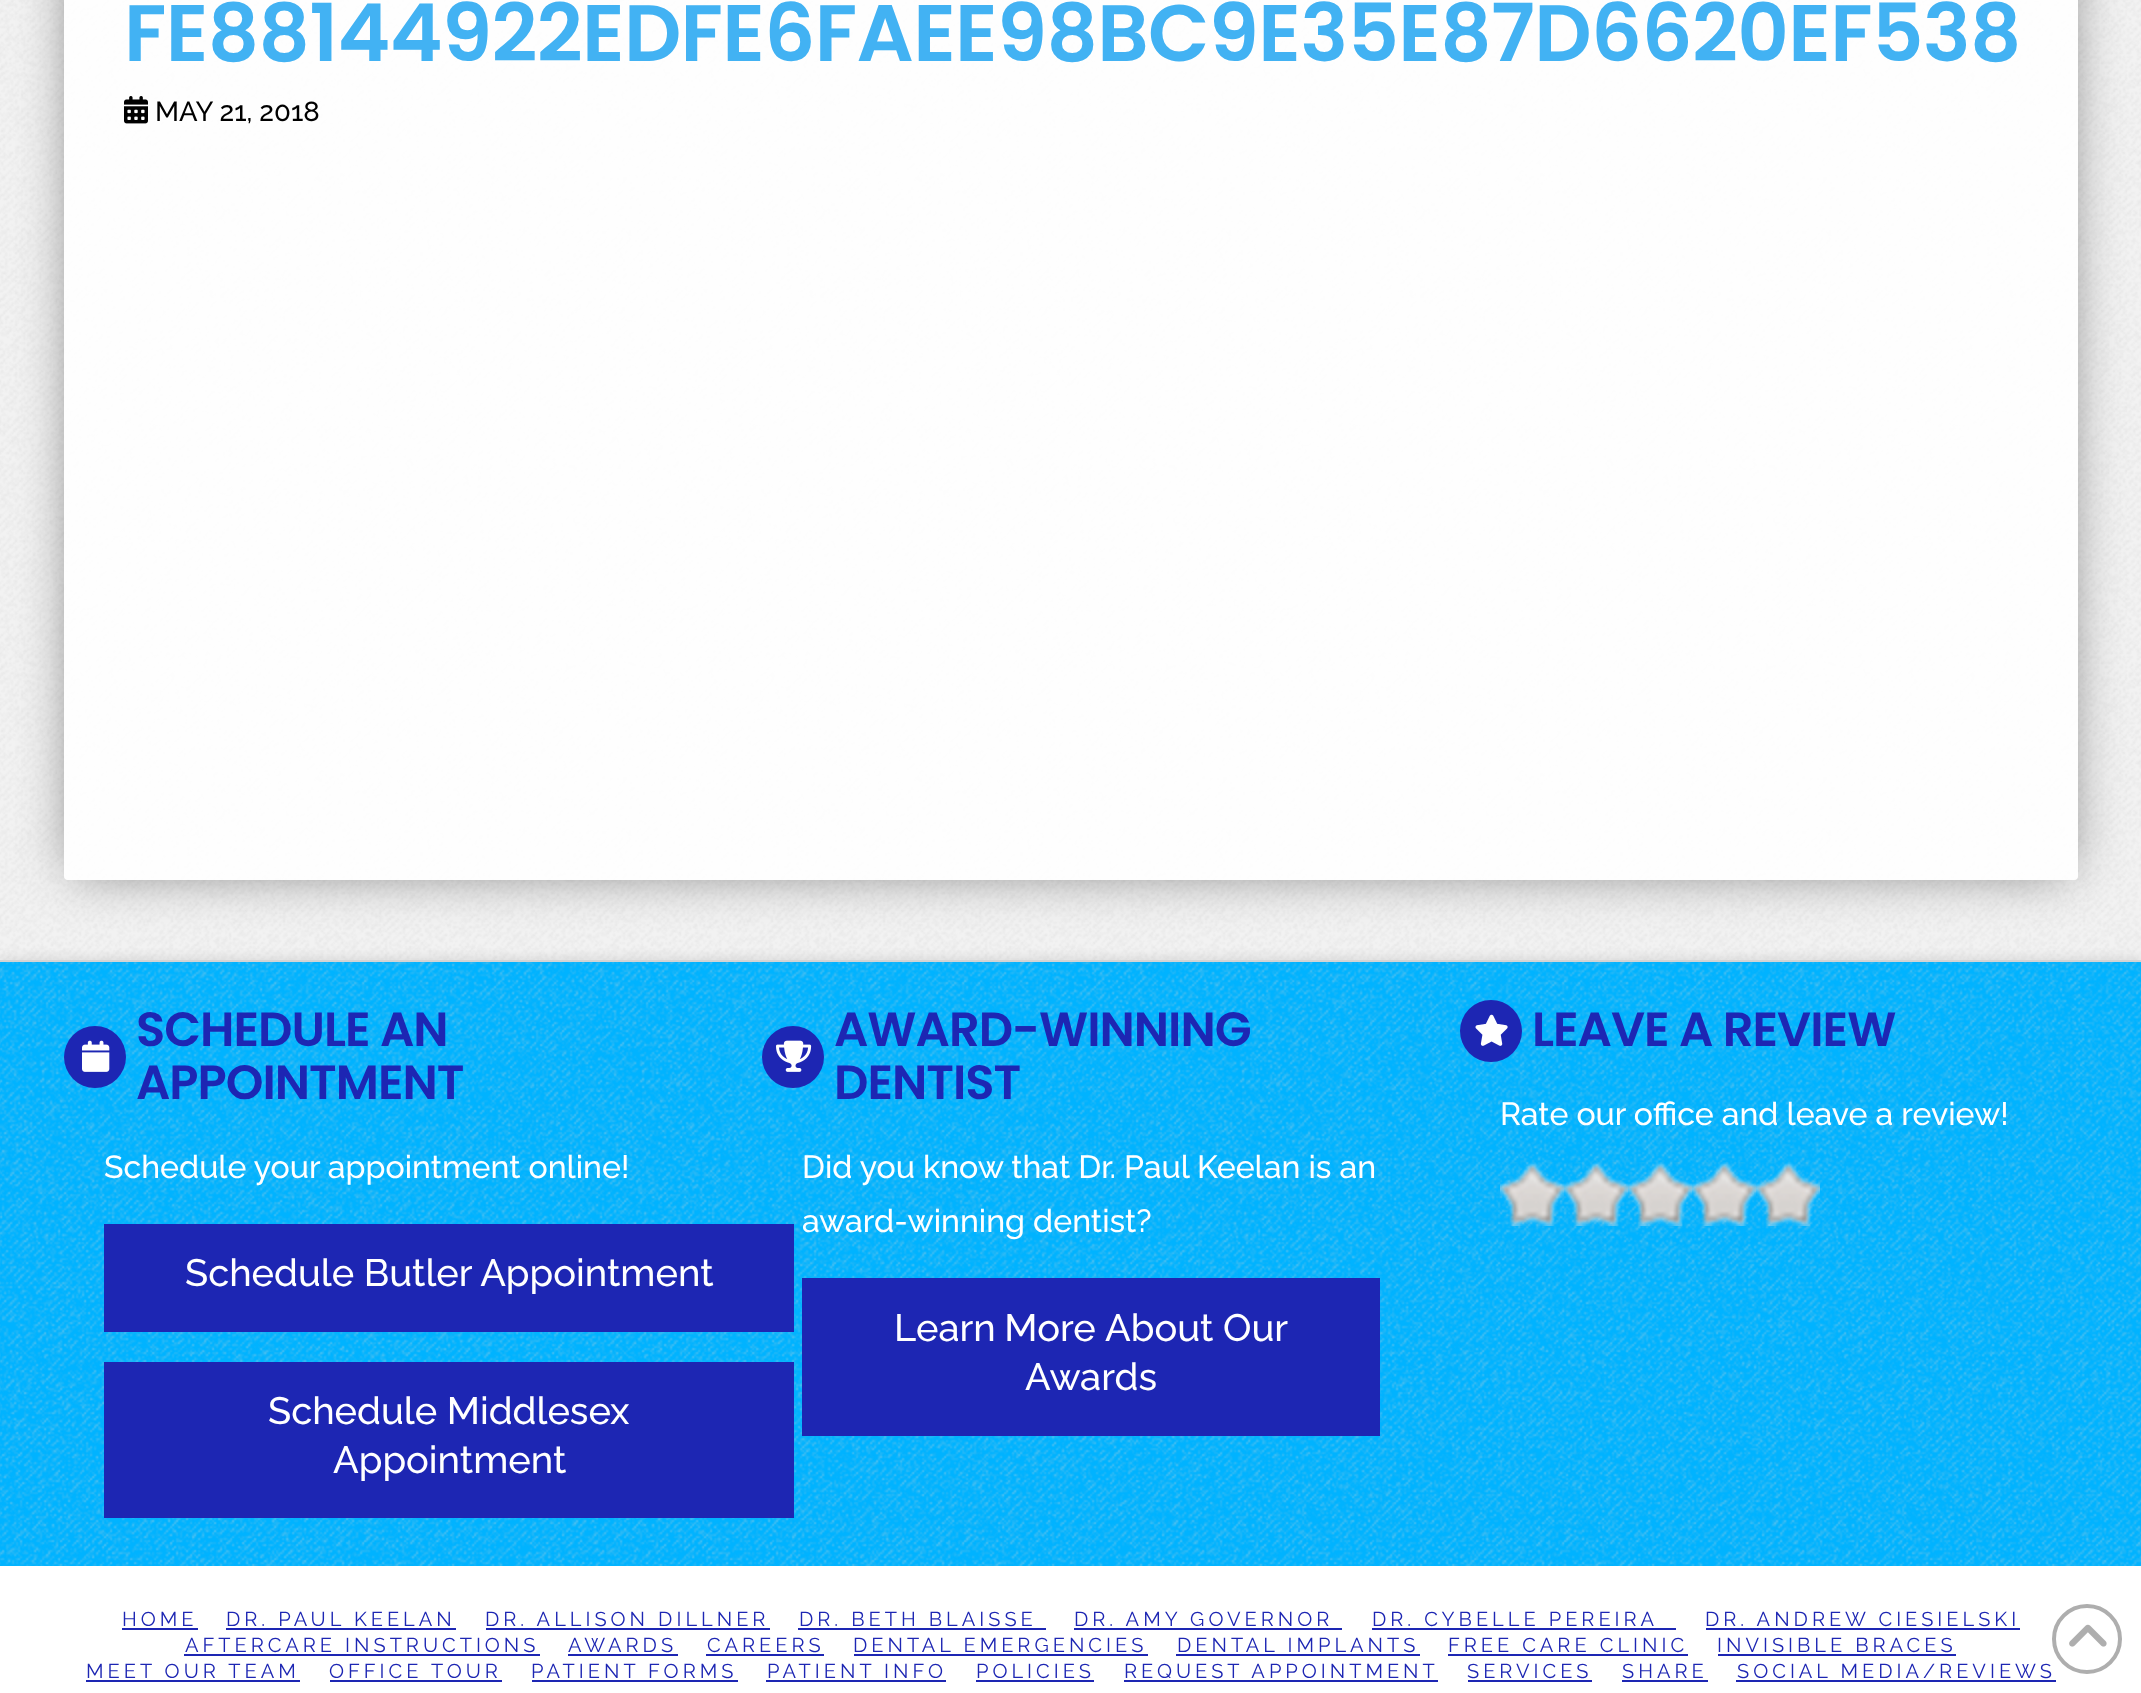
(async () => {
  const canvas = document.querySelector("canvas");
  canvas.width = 2141;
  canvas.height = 1693;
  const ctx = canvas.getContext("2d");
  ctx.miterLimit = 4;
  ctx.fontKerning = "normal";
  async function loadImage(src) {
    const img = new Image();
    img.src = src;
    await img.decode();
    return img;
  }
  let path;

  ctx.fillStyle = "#f2f2f2";
  ctx.fillRect(0, 0, 2141, 1693);
  ctx.drawImage(await loadImage("img/1.png"), 0, 0, 2141, 960);
  ctx.save();
  path = new Path2D("M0 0H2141V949H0ZM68-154H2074C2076-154 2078-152 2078-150V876C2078 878 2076 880 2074 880H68C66 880 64 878 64 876V-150C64-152 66-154 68-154Z");
  ctx.clip(path, "evenodd");
  ctx.fillStyle = "rgba(0, 0, 0, 0.5)";
  ctx.filter = "blur(26px)";
  ctx.beginPath();
  ctx.rect(74, -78, 1994, 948);
  ctx.fill();
  ctx.filter = "none";
  ctx.restore();
  ctx.fillStyle = "rgba(255, 255, 255, 0.9)";
  ctx.beginPath();
  ctx.roundRect(64, -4, 2014, 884, 4);
  ctx.fill();
  ctx.drawImage(await loadImage("img/2.png"), 124, 96, 24, 28);
  ctx.fillStyle = "rgba(0, 0, 0, 0.07)";
  ctx.filter = "blur(4px)";
  ctx.beginPath();
  ctx.rect(0, 956, 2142, 606);
  ctx.fill();
  ctx.filter = "none";
  ctx.fillStyle = "#00b3ff";
  ctx.fillRect(0, 962, 2141, 604);
  ctx.drawImage(await loadImage("img/3.png"), 0, 962, 2141, 604);
  ctx.fillStyle = "#d4d4d4";
  ctx.fillRect(0, 960, 2141, 2);
  ctx.fillStyle = "#1d26b3";
  ctx.beginPath();
  ctx.arc(95, 1057, 31, 0, Math.PI * 2);
  ctx.fill();
  ctx.drawImage(await loadImage("img/4.png"), 82, 1040, 28, 32);
  ctx.fillRect(104, 1224, 690, 108);
  ctx.fillRect(104, 1362, 690, 156);
  ctx.beginPath();
  ctx.arc(793, 1057, 31, 0, Math.PI * 2);
  ctx.fill();
  ctx.drawImage(await loadImage("img/5.png"), 776, 1040, 36, 32);
  ctx.fillRect(802, 1278, 578, 158);
  ctx.beginPath();
  ctx.arc(1491, 1031, 31, 0, Math.PI * 2);
  ctx.fill();
  ctx.drawImage(await loadImage("img/6.png"), 1475, 1014, 33, 32);
  ctx.drawImage(await loadImage("img/7.png"), 1500, 1162, 64, 64);
  ctx.drawImage(await loadImage("img/8.png"), 1564, 1162, 64, 64);
  ctx.drawImage(await loadImage("img/9.png"), 1628, 1162, 64, 64);
  ctx.drawImage(await loadImage("img/10.png"), 1692, 1162, 64, 64);
  ctx.drawImage(await loadImage("img/11.png"), 1756, 1162, 64, 64);
  for (const [x, y, w, h, color] of [
    [0, 1566, 2141, 127, "#ffffff"],
    [122, 1628, 76, 2, "#1d26b3"],
    [226, 1628, 230, 2, "#1d26b3"],
    [486, 1628, 284, 2, "#1d26b3"],
    [798, 1628, 248, 2, "#1d26b3"],
    [1074, 1628, 268, 2, "#1d26b3"],
    [1372, 1628, 304, 2, "#1d26b3"],
    [1706, 1628, 314, 2, "#1d26b3"],
    [184, 1654, 356, 2, "#1d26b3"],
    [568, 1654, 110, 2, "#1d26b3"],
    [706, 1654, 118, 2, "#1d26b3"],
    [854, 1654, 294, 2, "#1d26b3"],
    [1176, 1654, 244, 2, "#1d26b3"],
    [1448, 1654, 240, 2, "#1d26b3"],
    [1718, 1654, 238, 2, "#1d26b3"],
    [86, 1680, 214, 2, "#1d26b3"],
    [330, 1680, 172, 2, "#1d26b3"],
    [532, 1680, 206, 2, "#1d26b3"],
    [766, 1680, 180, 2, "#1d26b3"],
    [976, 1680, 118, 2, "#1d26b3"],
    [1124, 1680, 314, 2, "#1d26b3"],
    [1468, 1680, 124, 2, "#1d26b3"],
    [1622, 1680, 86, 2, "#1d26b3"],
    [1736, 1680, 320, 2, "#1d26b3"],
  ]) {
    ctx.fillStyle = color;
    ctx.fillRect(x, y, w, h);
  }
  ctx.beginPath();
  ctx.arc(2087, 1639, 33, 0, Math.PI * 2);
  ctx.strokeStyle = "#aeaeae";
  ctx.lineWidth = 4;
  ctx.stroke();
  ctx.drawImage(await loadImage("img/12.png"), 2069, 1624, 38, 23);
  ctx.letterSpacing = "-0.65px";
  ctx.font = "600 80px Poppins";
  ctx.fillStyle = "#42b2f3";
  ctx.fillText("FE88144922EDFE6FAEE98BC9E35E87D6620EF538", 124, 61);
  ctx.letterSpacing = "0px";
  ctx.font = "500 27.5px Raleway";
  ctx.fillStyle = "#000000";
  ctx.fillText("MAY 21, 2018", 155, 121);
  ctx.letterSpacing = "-1px";
  ctx.font = "600 48px Poppins";
  ctx.fillStyle = "#1d26b3";
  ctx.fillText("SCHEDULE AN", 136, 1046);
  ctx.fillText("APPOINTMENT", 136, 1099);
  ctx.letterSpacing = "0px";
  ctx.font = "500 32px Raleway";
  ctx.fillStyle = "#ffffff";
  ctx.fillText("Schedule your appointment online!", 104, 1178);
  ctx.font = "500 38px Raleway";
  for (const [text, x, y] of [
    ["Schedule Butler Appointment", 185, 1286],
    ["Schedule Middlesex", 268, 1424],
    ["Appointment", 333, 1473],
  ]) {
    ctx.fillText(text, x, y);
  }
  ctx.letterSpacing = "-1px";
  ctx.font = "600 48px Poppins";
  ctx.fillStyle = "#1d26b3";
  ctx.fillText("AWARD-WINNING", 834, 1046);
  ctx.fillText("DENTIST", 834, 1099);
  ctx.letterSpacing = "0px";
  ctx.font = "500 32px Raleway";
  ctx.fillStyle = "#ffffff";
  ctx.fillText("Did you know that Dr. Paul Keelan is an", 802, 1178);
  ctx.fillText("award-winning dentist?", 802, 1232);
  ctx.wordSpacing = "-1px";
  ctx.font = "500 38px Raleway";
  ctx.fillText("Learn More", 894, 1341);
  ctx.wordSpacing = "0px";
  ctx.fillText("About Our", 1105, 1341);
  ctx.fillText("Awards", 1025, 1390);
  ctx.letterSpacing = "-1px";
  ctx.font = "600 48px Poppins";
  ctx.fillStyle = "#1d26b3";
  ctx.fillText("LEAVE A REVIEW", 1532, 1046);
  ctx.letterSpacing = "0px";
  ctx.font = "500 32px Raleway";
  ctx.fillStyle = "#ffffff";
  ctx.fillText("Rate our office and leave a review!", 1500, 1125);
  ctx.letterSpacing = "4px";
  ctx.font = "20px Raleway";
  ctx.fillStyle = "#1d26b3";
  for (const [text, x, y] of [
    ["HOME", 122, 1626],
    ["DR. PAUL KEELAN", 226, 1626],
    ["DR. ALLISON DILLNER", 485, 1626],
    ["DR. BETH BLAISSE", 799, 1626],
    ["DR. AMY GOVERNOR", 1074, 1626],
    ["DR. CYBELLE PEREIRA", 1372, 1626],
    ["DR. ANDREW CIESIELSKI", 1705, 1626],
    ["AFTERCARE INSTRUCTIONS", 185, 1652],
    ["AWARDS", 568, 1652],
    ["CAREERS", 707, 1652],
    ["DENTAL EMERGENCIES", 853, 1652],
    ["DENTAL IMPLANTS", 1177, 1652],
    ["FREE CARE CLINIC", 1448, 1652],
    ["INVISIBLE BRACES", 1717, 1652],
    ["MEET OUR TEAM", 86, 1678],
    ["OFFICE TOUR", 329, 1678],
    ["PATIENT FORMS", 531, 1678],
    ["PATIENT INFO", 767, 1678],
    ["POLICIES", 976, 1678],
    ["REQUEST APPOINTMENT", 1124, 1678],
    ["SERVICES", 1467, 1678],
    ["SHARE", 1622, 1678],
    ["SOCIAL MEDIA/REVIEWS", 1737, 1678],
  ]) {
    ctx.fillText(text, x, y);
  }
})();
